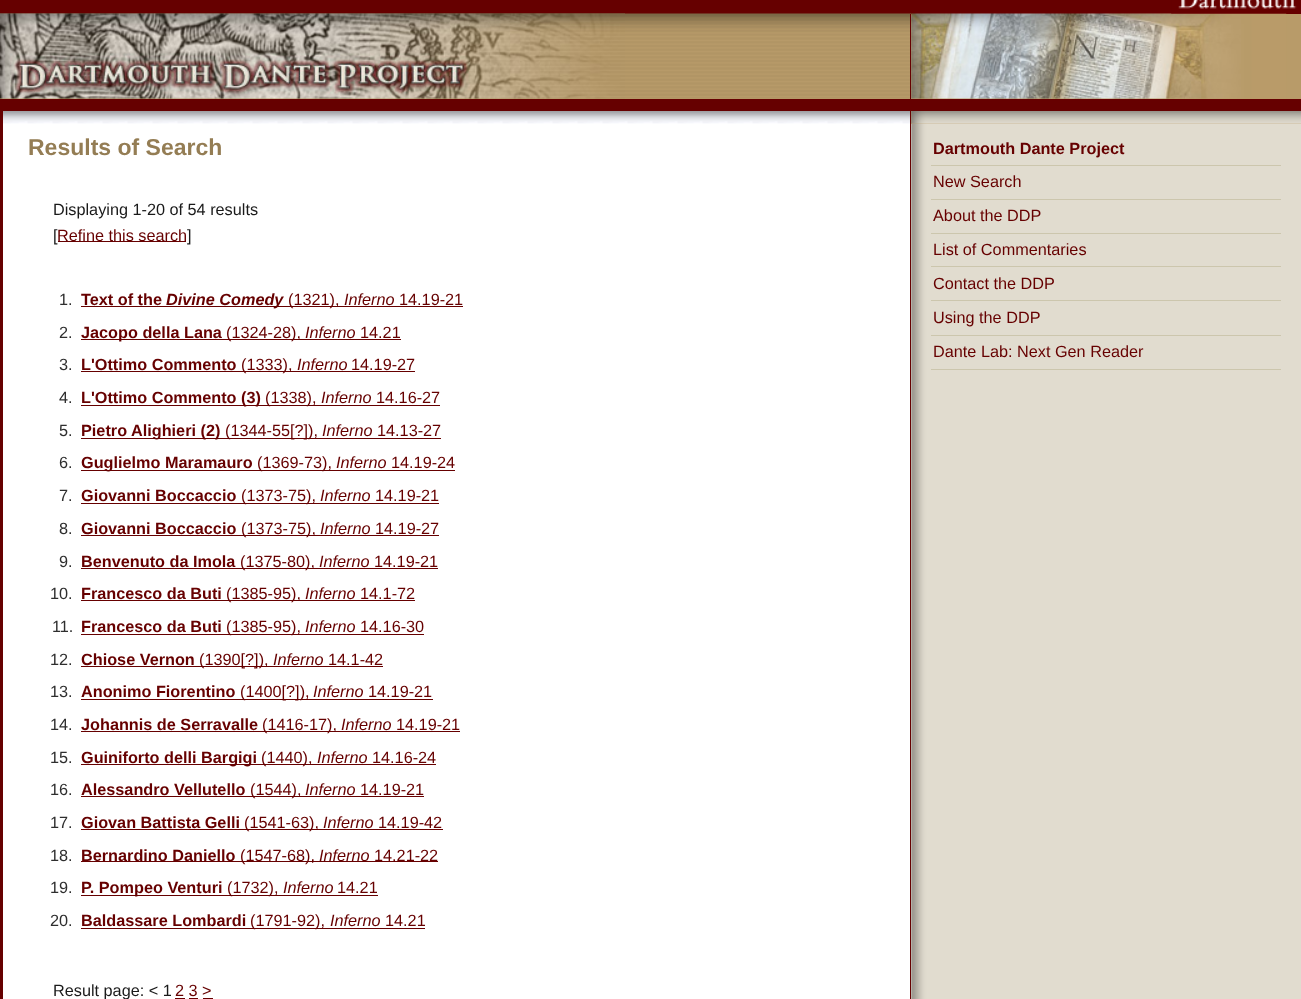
(async () => {
  const canvas = document.querySelector("canvas");
  canvas.width = 1301;
  canvas.height = 999;
  const ctx = canvas.getContext("2d");
  ctx.miterLimit = 4;
  ctx.fontKerning = "normal";
  async function loadImage(src) {
    const img = new Image();
    img.src = src;
    await img.decode();
    return img;
  }

  ctx.fillStyle = "#ffffff";
  ctx.fillRect(0, 0, 1301, 999);
  ctx.fillStyle = "#660000";
  ctx.fillRect(0, 0, 1301, 14);
  ctx.fillStyle = "#b89b69";
  ctx.fillRect(0, 98, 910, 1);
  ctx.drawImage(await loadImage("img/2.png"), 0, 13, 912, 86);
  ctx.fillRect(911, 14, 390, 85);
  ctx.drawImage(await loadImage("img/4.png"), 911, 13, 376, 86);
  ctx.drawImage(await loadImage("img/1.png"), 1171, 0, 126, 14);
  ctx.fillStyle = "#660000";
  ctx.fillRect(910, 14, 1, 85);
  ctx.drawImage(await loadImage("img/3.png"), 0, 13, 625, 86);
  ctx.fillRect(0, 99, 1301, 12);
  ctx.drawImage(await loadImage("img/5.png"), 3, 111, 907, 13);
  for (const [x, y, w, h, color] of [
    [910, 111, 1, 888, "#660000"],
    [0, 111, 3, 888, "#660000"],
    [911, 111, 390, 13, "#b89b69"],
  ]) {
    ctx.fillStyle = color;
    ctx.fillRect(x, y, w, h);
  }
  ctx.drawImage(await loadImage("img/6.png"), 911, 111, 390, 13);
  for (const [x, y, w, h, color] of [
    [58, 241, 128, 1, "#660000"],
    [81, 306, 203, 1, "#660000"],
    [284, 306, 179, 1, "#660000"],
    [81, 339, 140, 1, "#660000"],
    [221, 339, 180, 1, "#660000"],
    [81, 371, 334, 1, "#660000"],
    [81, 405, 359, 1, "#660000"],
    [81, 438, 360, 1, "#660000"],
    [81, 470, 374, 1, "#660000"],
    [81, 503, 358, 1, "#660000"],
    [81, 535, 358, 1, "#660000"],
    [81, 568, 357, 1, "#660000"],
    [81, 600, 334, 1, "#660000"],
    [81, 634, 343, 1, "#660000"],
    [81, 666, 302, 1, "#660000"],
    [81, 699, 352, 1, "#660000"],
    [81, 731, 379, 1, "#660000"],
    [81, 764, 355, 1, "#660000"],
    [81, 796, 343, 1, "#660000"],
    [81, 829, 362, 1, "#660000"],
    [81, 861, 357, 1, "#660000"],
    [81, 895, 297, 1, "#660000"],
    [81, 928, 344, 1, "#660000"],
    [175, 998, 10, 1, "#660000"],
    [189, 998, 9, 1, "#660000"],
    [203, 998, 10, 1, "#660000"],
  ]) {
    ctx.fillStyle = color;
    ctx.fillRect(x, y, w, h);
  }
  ctx.drawImage(await loadImage("img/7.png"), 911, 123, 390, 876);
  for (const [x, y, w, h, color] of [
    [931, 165, 350, 1, "#ccc6ad"],
    [931, 199, 350, 1, "#ccc6ad"],
    [931, 233, 350, 1, "#ccc6ad"],
    [931, 266, 350, 1, "#ccc6ad"],
    [931, 300, 350, 1, "#ccc6ad"],
    [931, 335, 350, 1, "#ccc6ad"],
    [931, 369, 350, 1, "#ccc6ad"],
  ]) {
    ctx.fillStyle = color;
    ctx.fillRect(x, y, w, h);
  }
  ctx.font = "bold 23px Liberation Sans";
  ctx.fillStyle = "#947d54";
  ctx.fillText("Results of Search", 28, 155);
  ctx.font = "16.25px Liberation Sans";
  ctx.fillStyle = "#1a1a1a";
  ctx.fillText("Displaying 1-20 of 54 results", 53, 215);
  ctx.fillText("[", 53, 241);
  ctx.fillStyle = "#660000";
  ctx.fillText("Refine this search", 57, 241);
  ctx.fillStyle = "#1a1a1a";
  ctx.fillText("]", 187, 241);
  ctx.fillStyle = "#2e2e2e";
  ctx.fillText("1.", 59, 305);
  ctx.font = "bold 16.25px Liberation Sans";
  ctx.fillStyle = "#660000";
  ctx.fillText("Text of the", 81, 305);
  ctx.font = "italic bold 16.25px Liberation Sans";
  ctx.fillText("Divine Comedy", 166, 305);
  ctx.font = "16.25px Liberation Sans";
  ctx.fillText("(1321),", 288, 305);
  ctx.font = "italic 16.25px Liberation Sans";
  ctx.fillText("Inferno", 344, 305);
  ctx.font = "16.25px Liberation Sans";
  ctx.fillText("14.19-21", 399, 305);
  ctx.fillStyle = "#2e2e2e";
  ctx.fillText("2.", 59, 338);
  ctx.font = "bold 16.25px Liberation Sans";
  ctx.fillStyle = "#660000";
  ctx.fillText("Jacopo della Lana", 81, 338);
  ctx.font = "16.25px Liberation Sans";
  ctx.fillText("(1324-28),", 226, 338);
  ctx.font = "italic 16.25px Liberation Sans";
  ctx.fillText("Inferno", 305, 338);
  ctx.font = "16.25px Liberation Sans";
  ctx.fillText("14.21", 360, 338);
  ctx.fillStyle = "#2e2e2e";
  ctx.fillText("3.", 59, 370);
  ctx.font = "bold 16.25px Liberation Sans";
  ctx.fillStyle = "#660000";
  ctx.fillText("L'Ottimo Commento", 81, 370);
  ctx.font = "16.25px Liberation Sans";
  ctx.fillText("(1333),", 241, 370);
  ctx.font = "italic 16.25px Liberation Sans";
  ctx.fillText("Inferno", 297, 370);
  ctx.font = "16.25px Liberation Sans";
  ctx.fillText("14.19-27", 351, 370);
  ctx.fillStyle = "#2e2e2e";
  ctx.fillText("4.", 59, 403);
  ctx.font = "bold 16.25px Liberation Sans";
  ctx.fillStyle = "#660000";
  ctx.fillText("L'Ottimo Commento (3)", 81, 403);
  ctx.font = "16.25px Liberation Sans";
  ctx.fillText("(1338),", 265, 403);
  ctx.font = "italic 16.25px Liberation Sans";
  ctx.fillText("Inferno", 321, 403);
  ctx.font = "16.25px Liberation Sans";
  ctx.fillText("14.16-27", 376, 403);
  ctx.fillStyle = "#2e2e2e";
  ctx.fillText("5.", 59, 436);
  ctx.font = "bold 16.25px Liberation Sans";
  ctx.fillStyle = "#660000";
  ctx.fillText("Pietro Alighieri (2)", 81, 436);
  ctx.font = "16.25px Liberation Sans";
  ctx.fillText("(1344-55[?]),", 225, 436);
  ctx.font = "italic 16.25px Liberation Sans";
  ctx.fillText("Inferno", 322, 436);
  ctx.font = "16.25px Liberation Sans";
  ctx.fillText("14.13-27", 377, 436);
  ctx.fillStyle = "#2e2e2e";
  ctx.fillText("6.", 59, 468);
  ctx.font = "bold 16.25px Liberation Sans";
  ctx.fillStyle = "#660000";
  ctx.fillText("Guglielmo Maramauro", 81, 468);
  ctx.font = "16.25px Liberation Sans";
  ctx.fillText("(1369-73),", 257, 468);
  ctx.font = "italic 16.25px Liberation Sans";
  ctx.fillText("Inferno", 336, 468);
  ctx.font = "16.25px Liberation Sans";
  ctx.fillText("14.19-24", 391, 468);
  ctx.fillStyle = "#2e2e2e";
  ctx.fillText("7.", 59, 501);
  ctx.font = "bold 16.25px Liberation Sans";
  ctx.fillStyle = "#660000";
  ctx.fillText("Giovanni Boccaccio", 81, 501);
  ctx.font = "16.25px Liberation Sans";
  ctx.fillText("(1373-75),", 241, 501);
  ctx.font = "italic 16.25px Liberation Sans";
  ctx.fillText("Inferno", 320, 501);
  ctx.font = "16.25px Liberation Sans";
  ctx.fillText("14.19-21", 375, 501);
  ctx.fillStyle = "#2e2e2e";
  ctx.fillText("8.", 59, 534);
  ctx.font = "bold 16.25px Liberation Sans";
  ctx.fillStyle = "#660000";
  ctx.fillText("Giovanni Boccaccio", 81, 534);
  ctx.font = "16.25px Liberation Sans";
  ctx.fillText("(1373-75),", 241, 534);
  ctx.font = "italic 16.25px Liberation Sans";
  ctx.fillText("Inferno", 320, 534);
  ctx.font = "16.25px Liberation Sans";
  ctx.fillText("14.19-27", 375, 534);
  ctx.fillStyle = "#2e2e2e";
  ctx.fillText("9.", 59, 567);
  ctx.font = "bold 16.25px Liberation Sans";
  ctx.fillStyle = "#660000";
  ctx.fillText("Benvenuto da Imola", 81, 567);
  ctx.font = "16.25px Liberation Sans";
  ctx.fillText("(1375-80),", 240, 567);
  ctx.font = "italic 16.25px Liberation Sans";
  ctx.fillText("Inferno", 319, 567);
  ctx.font = "16.25px Liberation Sans";
  ctx.fillText("14.19-21", 374, 567);
  ctx.fillStyle = "#2e2e2e";
  ctx.fillText("10.", 50, 599);
  ctx.font = "bold 16.25px Liberation Sans";
  ctx.fillStyle = "#660000";
  ctx.fillText("Francesco da Buti", 81, 599);
  ctx.font = "16.25px Liberation Sans";
  ctx.fillText("(1385-95),", 226, 599);
  ctx.font = "italic 16.25px Liberation Sans";
  ctx.fillText("Inferno", 305, 599);
  ctx.font = "16.25px Liberation Sans";
  ctx.fillText("14.1-72", 360, 599);
  ctx.fillStyle = "#2e2e2e";
  ctx.fillText("11.", 52, 632);
  ctx.font = "bold 16.25px Liberation Sans";
  ctx.fillStyle = "#660000";
  ctx.fillText("Francesco da Buti", 81, 632);
  ctx.font = "16.25px Liberation Sans";
  ctx.fillText("(1385-95),", 226, 632);
  ctx.font = "italic 16.25px Liberation Sans";
  ctx.fillText("Inferno", 305, 632);
  ctx.font = "16.25px Liberation Sans";
  ctx.fillText("14.16-30", 360, 632);
  ctx.fillStyle = "#2e2e2e";
  ctx.fillText("12.", 50, 665);
  ctx.font = "bold 16.25px Liberation Sans";
  ctx.fillStyle = "#660000";
  ctx.fillText("Chiose Vernon", 81, 665);
  ctx.font = "16.25px Liberation Sans";
  ctx.fillText("(1390[?]),", 199, 665);
  ctx.font = "italic 16.25px Liberation Sans";
  ctx.fillText("Inferno", 273, 665);
  ctx.font = "16.25px Liberation Sans";
  ctx.fillText("14.1-42", 328, 665);
  ctx.fillStyle = "#2e2e2e";
  ctx.fillText("13.", 50, 697);
  ctx.font = "bold 16.25px Liberation Sans";
  ctx.fillStyle = "#660000";
  ctx.fillText("Anonimo Fiorentino", 81, 697);
  ctx.font = "16.25px Liberation Sans";
  ctx.fillText("(1400[?]),", 240, 697);
  ctx.font = "italic 16.25px Liberation Sans";
  ctx.fillText("Inferno", 313, 697);
  ctx.font = "16.25px Liberation Sans";
  ctx.fillText("14.19-21", 368, 697);
  ctx.fillStyle = "#2e2e2e";
  ctx.fillText("14.", 50, 730);
  ctx.font = "bold 16.25px Liberation Sans";
  ctx.fillStyle = "#660000";
  ctx.fillText("Johannis de Serravalle", 81, 730);
  ctx.font = "16.25px Liberation Sans";
  ctx.fillText("(1416-17),", 262, 730);
  ctx.font = "italic 16.25px Liberation Sans";
  ctx.fillText("Inferno", 341, 730);
  ctx.font = "16.25px Liberation Sans";
  ctx.fillText("14.19-21", 396, 730);
  ctx.fillStyle = "#2e2e2e";
  ctx.fillText("15.", 50, 763);
  ctx.font = "bold 16.25px Liberation Sans";
  ctx.fillStyle = "#660000";
  ctx.fillText("Guiniforto delli Bargigi", 81, 763);
  ctx.font = "16.25px Liberation Sans";
  ctx.fillText("(1440),", 261, 763);
  ctx.font = "italic 16.25px Liberation Sans";
  ctx.fillText("Inferno", 317, 763);
  ctx.font = "16.25px Liberation Sans";
  ctx.fillText("14.16-24", 372, 763);
  ctx.fillStyle = "#2e2e2e";
  ctx.fillText("16.", 50, 795);
  ctx.font = "bold 16.25px Liberation Sans";
  ctx.fillStyle = "#660000";
  ctx.fillText("Alessandro Vellutello", 81, 795);
  ctx.font = "16.25px Liberation Sans";
  ctx.fillText("(1544),", 250, 795);
  ctx.font = "italic 16.25px Liberation Sans";
  ctx.fillText("Inferno", 305, 795);
  ctx.font = "16.25px Liberation Sans";
  ctx.fillText("14.19-21", 360, 795);
  ctx.fillStyle = "#2e2e2e";
  ctx.fillText("17.", 50, 828);
  ctx.font = "bold 16.25px Liberation Sans";
  ctx.fillStyle = "#660000";
  ctx.fillText("Giovan Battista Gelli", 81, 828);
  ctx.font = "16.25px Liberation Sans";
  ctx.fillText("(1541-63),", 244, 828);
  ctx.font = "italic 16.25px Liberation Sans";
  ctx.fillText("Inferno", 323, 828);
  ctx.font = "16.25px Liberation Sans";
  ctx.fillText("14.19-42", 378, 828);
  ctx.fillStyle = "#2e2e2e";
  ctx.fillText("18.", 50, 861);
  ctx.font = "bold 16.25px Liberation Sans";
  ctx.fillStyle = "#660000";
  ctx.fillText("Bernardino Daniello", 81, 861);
  ctx.font = "16.25px Liberation Sans";
  ctx.fillText("(1547-68),", 240, 861);
  ctx.font = "italic 16.25px Liberation Sans";
  ctx.fillText("Inferno", 319, 861);
  ctx.font = "16.25px Liberation Sans";
  ctx.fillText("14.21-22", 374, 861);
  ctx.fillStyle = "#2e2e2e";
  ctx.fillText("19.", 50, 893);
  ctx.font = "bold 16.25px Liberation Sans";
  ctx.fillStyle = "#660000";
  ctx.fillText("P. Pompeo Venturi", 81, 893);
  ctx.font = "16.25px Liberation Sans";
  ctx.fillText("(1732),", 227, 893);
  ctx.font = "italic 16.25px Liberation Sans";
  ctx.fillText("Inferno", 283, 893);
  ctx.font = "16.25px Liberation Sans";
  ctx.fillText("14.21", 337, 893);
  ctx.fillStyle = "#2e2e2e";
  ctx.fillText("20.", 50, 926);
  ctx.font = "bold 16.25px Liberation Sans";
  ctx.fillStyle = "#660000";
  ctx.fillText("Baldassare Lombardi", 81, 926);
  ctx.font = "16.25px Liberation Sans";
  ctx.fillText("(1791-92),", 250, 926);
  ctx.font = "italic 16.25px Liberation Sans";
  ctx.fillText("Inferno", 330, 926);
  ctx.font = "16.25px Liberation Sans";
  ctx.fillText("14.21", 385, 926);
  ctx.fillStyle = "#1a1a1a";
  ctx.fillText("Result page: < 1", 53, 996);
  ctx.fillStyle = "#660000";
  ctx.fillText("2 3 >", 175, 996);
  ctx.font = "bold 16.25px Liberation Sans";
  ctx.fillText("Dartmouth Dante Project", 933, 154);
  ctx.font = "16.25px Liberation Sans";
  for (const [text, x, y] of [
    ["New Search", 933, 187],
    ["About the DDP", 933, 221],
    ["List of Commentaries", 933, 255],
    ["Contact the DDP", 933, 289],
    ["Using the DDP", 933, 323],
    ["Dante Lab: Next Gen Reader", 933, 357],
  ]) {
    ctx.fillText(text, x, y);
  }
})();
